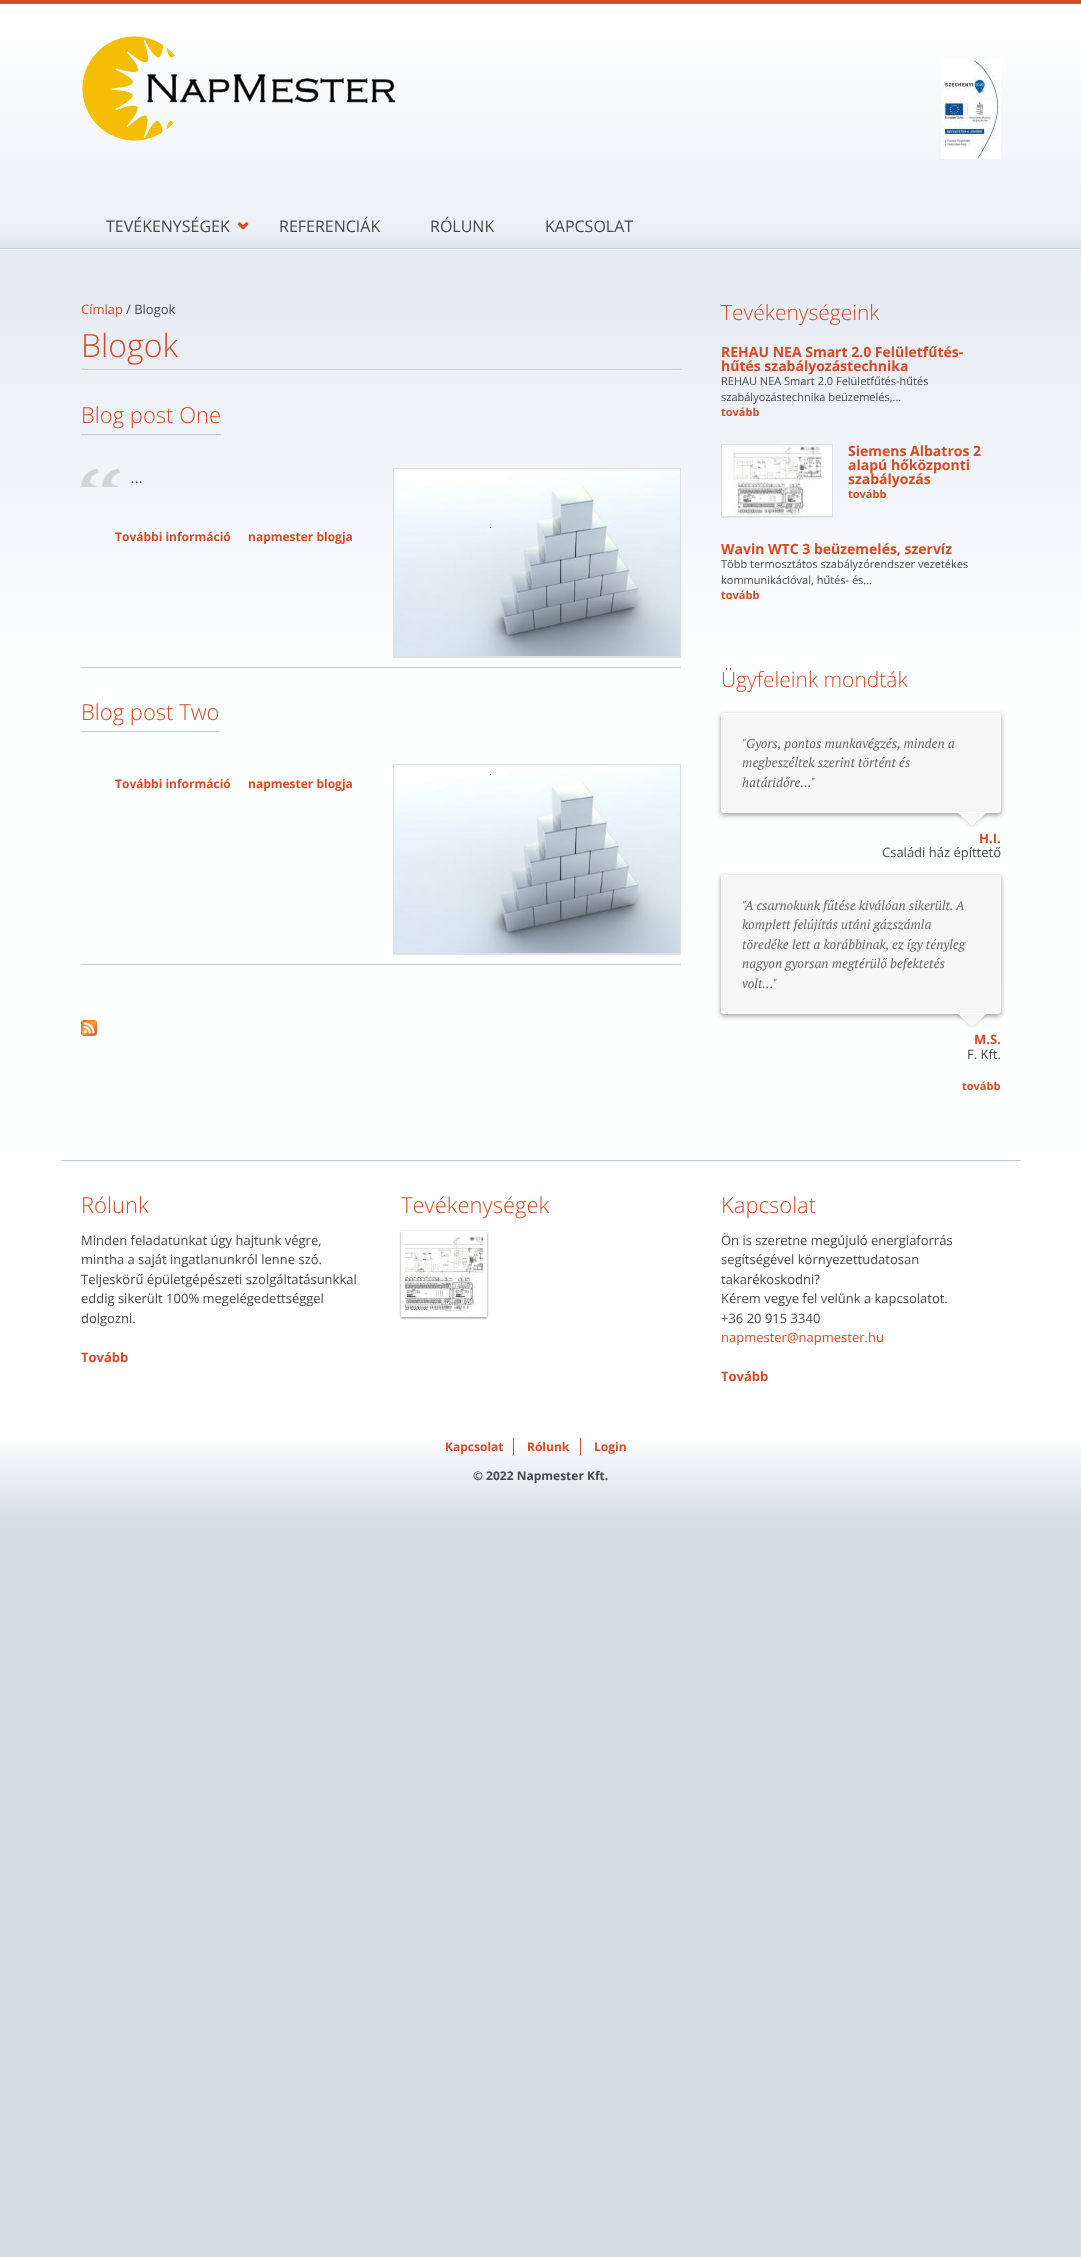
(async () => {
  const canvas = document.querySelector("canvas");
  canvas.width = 1081;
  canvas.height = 2257;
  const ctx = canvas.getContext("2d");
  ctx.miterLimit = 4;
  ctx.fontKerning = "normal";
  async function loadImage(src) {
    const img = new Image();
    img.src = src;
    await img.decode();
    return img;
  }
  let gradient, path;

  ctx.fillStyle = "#d2dde6";
  ctx.fillRect(0, 0, 1081, 2257);
  ctx.fillStyle = "#d84a27";
  ctx.fillRect(0, 0, 1081, 3);
  gradient = ctx.createLinearGradient(541, 4, 541, 248);
  gradient.addColorStop(0.07, "#ffffff");
  gradient.addColorStop(0.93, "#ecf0f4");
  gradient.addColorStop(1, "#dde6ed");
  ctx.fillStyle = gradient;
  ctx.fillRect(0, 4, 1081, 244);
  ctx.fillStyle = "#db5635";
  ctx.fillRect(0, 3, 1081, 1);
  ctx.fillStyle = "#bccfdb";
  ctx.fillRect(0, 248, 1081, 1);
  ctx.drawImage(await loadImage("img/1.png"), 82, 36, 314, 105);
  ctx.drawImage(await loadImage("img/2.png"), 941, 59, 60, 100);
  ctx.drawImage(await loadImage("img/3.png"), 237, 222, 12, 8);
  gradient = ctx.createLinearGradient(540, 250, 541, 1437);
  gradient.addColorStop(0, "#e4eaf1");
  gradient.addColorStop(0.35, "#fdfefe");
  gradient.addColorStop(1, "#ffffff");
  ctx.fillStyle = gradient;
  ctx.fillRect(0, 250, 1081, 1187);
  for (const [x, y, w, h, color] of [
    [0, 249, 1081, 1, "#ffffff"],
    [81, 370, 600, 1, "#ffffff"],
    [81, 369, 600, 1, "#bcccd8"],
    [81, 667, 600, 1, "#bcccd8"],
    [81, 434, 140, 1, "#bcccd8"],
  ]) {
    ctx.fillStyle = color;
    ctx.fillRect(x, y, w, h);
  }
  ctx.drawImage(await loadImage("img/4.png"), 81, 468, 39, 19);
  ctx.fillStyle = "#e5e5e5";
  ctx.filter = "blur(0.5px)";
  ctx.beginPath();
  ctx.rect(393, 469, 288, 189);
  ctx.fill();
  ctx.filter = "none";
  ctx.strokeStyle = "#dedfe1";
  ctx.strokeRect(393.5, 468.5, 287, 188);
  ctx.drawImage(await loadImage("img/5.png"), 394, 469, 286, 187);
  for (const [x, y, w, h, color] of [
    [490, 527, 1, 1, "#d84a27"],
    [81, 964, 600, 1, "#bcccd8"],
    [81, 731, 138, 1, "#bcccd8"],
  ]) {
    ctx.fillStyle = color;
    ctx.fillRect(x, y, w, h);
  }
  ctx.fillStyle = "#e5e5e5";
  ctx.filter = "blur(0.5px)";
  ctx.beginPath();
  ctx.rect(393, 765, 288, 190);
  ctx.fill();
  ctx.filter = "none";
  ctx.strokeRect(393.5, 764.5, 287, 189);
  ctx.drawImage(await loadImage("img/6.png"), 394, 765, 286, 188);
  ctx.fillStyle = "#d84a27";
  ctx.fillRect(490, 774, 1, 1);
  ctx.drawImage(await loadImage("img/7.png"), 81, 1020, 16, 16);
  ctx.fillStyle = "#e5e5e5";
  ctx.filter = "blur(0.5px)";
  ctx.beginPath();
  ctx.rect(721, 445, 112, 73);
  ctx.fill();
  ctx.filter = "none";
  ctx.strokeStyle = "#dfe0e2";
  ctx.strokeRect(721.5, 444.5, 111, 72);
  ctx.drawImage(await loadImage("img/8.png"), 722, 445, 110, 71);
  ctx.fillStyle = "#9d9d9d";
  ctx.filter = "blur(2.5px)";
  ctx.beginPath();
  ctx.rect(721, 715, 280, 100);
  ctx.fill();
  ctx.filter = "none";
  ctx.fillStyle = "#f6f6f6";
  ctx.beginPath();
  ctx.roundRect(721.5, 713.5, 279, 99, 2.5);
  ctx.fill();
  ctx.strokeStyle = "#ffffff";
  ctx.stroke();
  ctx.drawImage(await loadImage("img/9.png"), 956, 813, 32, 14);
  ctx.fillStyle = "#9d9d9d";
  ctx.filter = "blur(2.5px)";
  ctx.beginPath();
  ctx.rect(721, 877, 280, 139);
  ctx.fill();
  ctx.filter = "none";
  ctx.fillStyle = "#f6f6f6";
  ctx.beginPath();
  ctx.roundRect(721.5, 875.5, 279, 138, 2.5);
  ctx.fill();
  ctx.stroke();
  ctx.drawImage(await loadImage("img/10.png"), 956, 1014, 32, 14);
  ctx.fillStyle = "#bcccd8";
  ctx.fillRect(61, 1160, 960, 1);
  ctx.save();
  path = new Path2D("M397 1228H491V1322H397ZM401 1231H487V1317H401Z");
  ctx.clip(path, "evenodd");
  ctx.fillStyle = "#888888";
  ctx.filter = "blur(1px)";
  ctx.beginPath();
  ctx.rect(401, 1232, 86, 86);
  ctx.fill();
  ctx.filter = "none";
  ctx.restore();
  ctx.drawImage(await loadImage("img/11.png"), 405, 1235, 78, 78);
  gradient = ctx.createLinearGradient(541, 1437, 541, 1526);
  gradient.addColorStop(0, "#ffffff");
  gradient.addColorStop(0.2, "#f4f6f7");
  gradient.addColorStop(1, "#d2dde6");
  ctx.fillStyle = gradient;
  ctx.fillRect(0, 1437, 1081, 84);
  ctx.fillStyle = "#d84a27";
  ctx.fillRect(513, 1438, 1, 17);
  ctx.fillRect(580, 1438, 1, 17);
  ctx.font = "16px Open Sans";
  ctx.fillStyle = "#494949";
  for (const [text, x, y] of [
    ["TEVÉKENYSÉGEK", 106, 232],
    ["REFERENCIÁK", 279, 232],
    ["RÓLUNK", 430, 232],
    ["KAPCSOLAT", 545, 232],
  ]) {
    ctx.fillText(text, x, y);
  }
  ctx.font = "13px Open Sans";
  ctx.fillStyle = "#d84a27";
  ctx.fillText("Címlap", 81, 314);
  ctx.fillStyle = "#494949";
  ctx.fillText("/ Blogok", 126, 314);
  ctx.font = "300 32px Open Sans";
  ctx.fillStyle = "#d84a27";
  ctx.fillText("Blogok", 81, 357);
  ctx.font = "300 22px Open Sans";
  ctx.fillText("Blog post One", 81, 423);
  ctx.font = "italic 14px PT Serif";
  ctx.fillStyle = "#494949";
  ctx.fillText("...", 131, 483);
  ctx.font = "bold 12px Open Sans";
  ctx.fillStyle = "#d84a27";
  ctx.fillText("További információ", 115, 541);
  ctx.fillText("napmester blogja", 248, 541);
  ctx.font = "300 22px Open Sans";
  ctx.fillText("Blog post Two", 81, 720);
  ctx.font = "bold 12px Open Sans";
  ctx.fillText("További információ", 115, 788);
  ctx.fillText("napmester blogja", 248, 788);
  ctx.font = "300 21px Open Sans";
  ctx.fillText("Tevékenységeink", 721, 320);
  ctx.font = "bold 14px Open Sans";
  ctx.fillText("REHAU NEA Smart 2.0 Felületfűtés-", 721, 357);
  ctx.fillText("hűtés szabályozástechnika", 721, 371);
  ctx.font = "11px Open Sans";
  ctx.fillStyle = "#494949";
  ctx.fillText("REHAU NEA Smart 2.0 Felületfűtés-hűtés", 721, 385);
  ctx.fillText("szabályozástechnika beüzemelés,...", 721, 401);
  ctx.font = "bold 11px Open Sans";
  ctx.fillStyle = "#d84a27";
  ctx.fillText("tovább", 721, 416);
  ctx.font = "bold 14px Open Sans";
  for (const [text, x, y] of [
    ["Siemens Albatros 2", 848, 456],
    ["alapú hőközponti", 848, 470],
    ["szabályozás", 848, 484],
  ]) {
    ctx.fillText(text, x, y);
  }
  ctx.font = "bold 11px Open Sans";
  ctx.fillText("tovább", 848, 498);
  ctx.font = "bold 14px Open Sans";
  ctx.fillText("Wavin WTC 3 beüzemelés, szervíz", 721, 554);
  ctx.font = "11px Open Sans";
  ctx.fillStyle = "#494949";
  ctx.fillText("Több termosztátos szabályzórendszer vezetékes", 721, 568);
  ctx.fillText("kommunikációval, hűtés- és...", 721, 584);
  ctx.font = "bold 11px Open Sans";
  ctx.fillStyle = "#d84a27";
  ctx.fillText("tovább", 721, 599);
  ctx.font = "300 21px Open Sans";
  ctx.fillText("Ügyfeleink mondták", 721, 687);
  ctx.font = "italic 13px PT Serif";
  ctx.fillStyle = "#696969";
  for (const [text, x, y] of [
    ["\"Gyors, pontos munkavégzés, minden a", 742, 748],
    ["megbeszéltek szerint történt és", 742, 767],
    ["határidőre...\"", 742, 787],
  ]) {
    ctx.fillText(text, x, y);
  }
  ctx.font = "bold 13px Open Sans";
  ctx.fillStyle = "#d84a27";
  ctx.fillText("H.I.", 979, 843);
  ctx.font = "13px Open Sans";
  ctx.fillStyle = "#494949";
  ctx.fillText("Családi ház építtető", 882, 857);
  ctx.font = "italic 13px PT Serif";
  ctx.fillStyle = "#696969";
  for (const [text, x, y] of [
    ["\"A csarnokunk fűtése kiválóan sikerült. A", 742, 910],
    ["komplett felújítás utáni gázszámla", 742, 929],
    ["töredéke lett a korábbinak, ez így tényleg", 742, 949],
    ["nagyon gyorsan megtérülő befektetés", 742, 968],
    ["volt...\"", 742, 988],
  ]) {
    ctx.fillText(text, x, y);
  }
  ctx.font = "bold 13px Open Sans";
  ctx.fillStyle = "#d84a27";
  ctx.fillText("M.S.", 974, 1044);
  ctx.font = "13px Open Sans";
  ctx.fillStyle = "#494949";
  ctx.fillText("F. Kft.", 967, 1059);
  ctx.font = "bold 11px Open Sans";
  ctx.fillStyle = "#d84a27";
  ctx.fillText("tovább", 962, 1090);
  ctx.font = "300 22px Open Sans";
  ctx.fillText("Rólunk", 81, 1213);
  ctx.font = "13px Open Sans";
  ctx.fillStyle = "#494949";
  for (const [text, x, y] of [
    ["Minden feladatunkat úgy hajtunk végre,", 81, 1245],
    ["mintha a saját ingatlanunkról lenne szó.", 81, 1264],
    ["Teljeskörű épületgépészeti szolgáltatásunkkal", 81, 1284],
    ["eddig sikerült 100% megelégedettséggel", 81, 1303],
    ["dolgozni.", 81, 1323],
  ]) {
    ctx.fillText(text, x, y);
  }
  ctx.font = "bold 13px Open Sans";
  ctx.fillStyle = "#d84a27";
  ctx.fillText("Tovább", 81, 1362);
  ctx.font = "300 22px Open Sans";
  ctx.fillText("Tevékenységek", 401, 1213);
  ctx.fillText("Kapcsolat", 721, 1213);
  ctx.font = "13px Open Sans";
  ctx.fillStyle = "#494949";
  for (const [text, x, y] of [
    ["Ön is szeretne megújuló energiaforrás", 721, 1245],
    ["segítségével környezettudatosan", 721, 1264],
    ["takarékoskodni?", 721, 1284],
    ["Kérem vegye fel velünk a kapcsolatot.", 721, 1303],
    ["+36 20 915 3340", 721, 1323],
  ]) {
    ctx.fillText(text, x, y);
  }
  ctx.fillStyle = "#d84a27";
  ctx.fillText("napmester@napmester.hu", 721, 1342);
  ctx.font = "bold 13px Open Sans";
  ctx.fillText("Tovább", 721, 1381);
  ctx.font = "bold 12px Open Sans";
  for (const [text, x, y] of [
    ["Kapcsolat", 445, 1451],
    ["Rólunk", 527, 1451],
    ["Login", 594, 1451],
  ]) {
    ctx.fillText(text, x, y);
  }
  ctx.fillStyle = "#494949";
  ctx.fillText("© 2022 Napmester Kft.", 473, 1480);
})();
